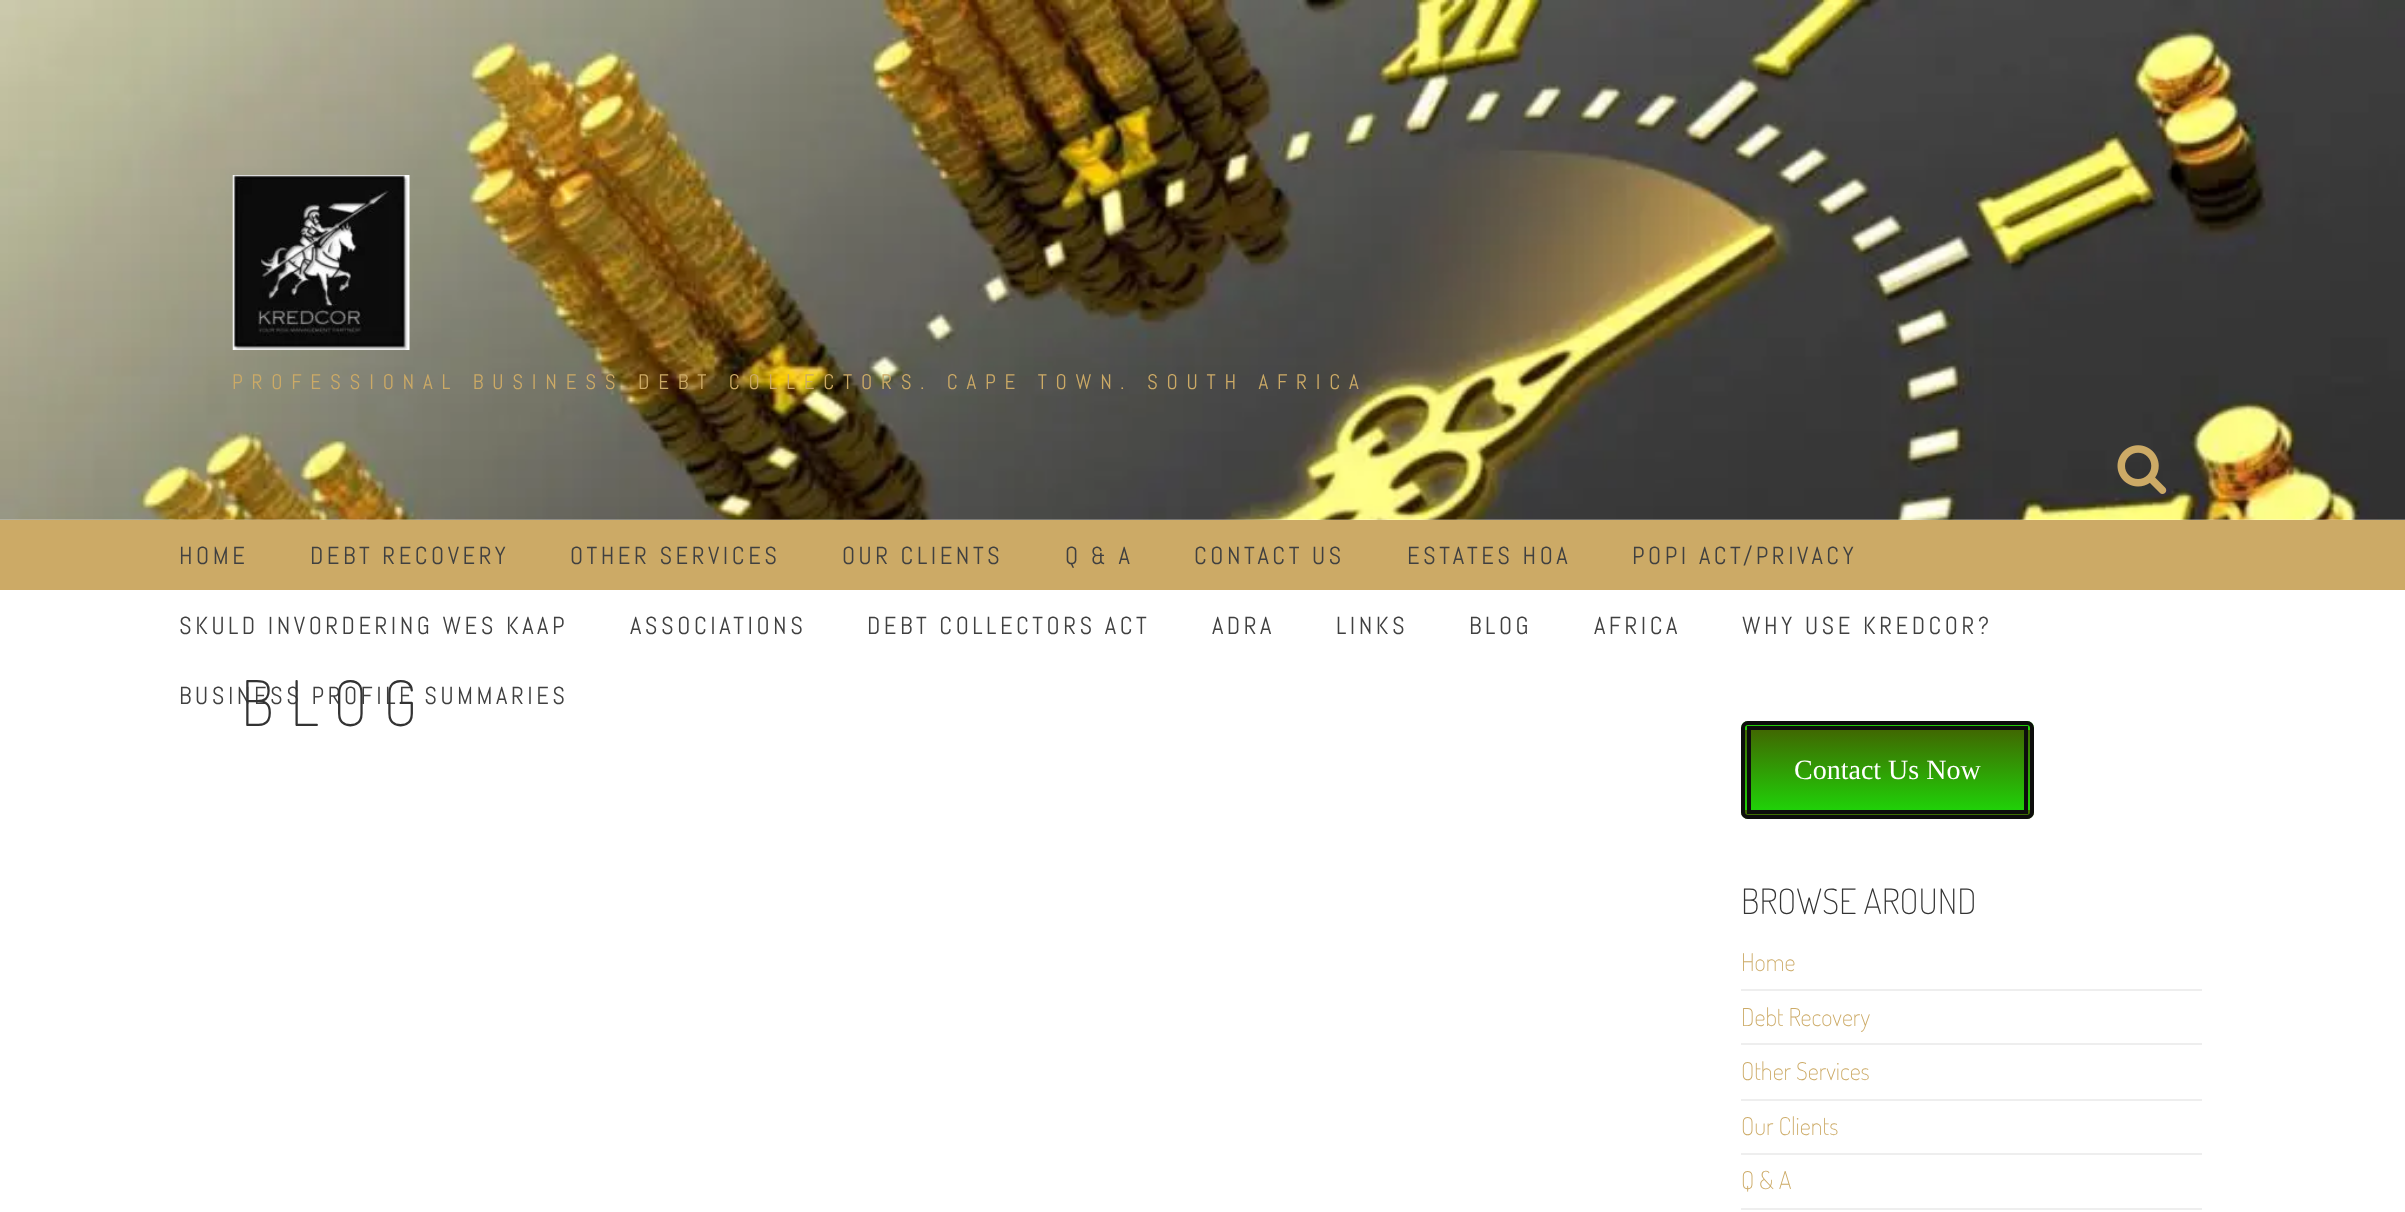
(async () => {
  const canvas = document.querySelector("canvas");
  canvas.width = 2405;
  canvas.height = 1212;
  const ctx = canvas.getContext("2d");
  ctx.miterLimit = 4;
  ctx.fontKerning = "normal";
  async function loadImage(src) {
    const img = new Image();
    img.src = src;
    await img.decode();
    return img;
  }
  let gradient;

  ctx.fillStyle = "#ffffff";
  ctx.fillRect(0, 0, 2405, 1212);
  ctx.drawImage(await loadImage("img/1.png"), 0, 0, 2405, 520);
  ctx.drawImage(await loadImage("img/2.png"), 232, 175, 178, 175);
  ctx.drawImage(await loadImage("img/3.png"), 2117, 445, 50, 49);
  ctx.fillStyle = "#ccaa66";
  ctx.fillRect(0, 520, 2405, 70);
  gradient = ctx.createLinearGradient(1887, 649, 1887, 730);
  gradient.addColorStop(0.01, "#406902");
  gradient.addColorStop(1, "#20d108");
  ctx.fillStyle = gradient;
  ctx.beginPath();
  ctx.roundRect(1741, 721, 293, 9, [7, 7, 0, 0]);
  ctx.fill();
  gradient = ctx.createLinearGradient(1887, 730, 1887, 810);
  gradient.addColorStop(0.01, "#406902");
  gradient.addColorStop(1, "#20d108");
  ctx.fillStyle = gradient;
  ctx.fillRect(1745, 730, 285, 80);
  gradient = ctx.createLinearGradient(1887, 810, 1887, 891);
  gradient.addColorStop(0.01, "#406902");
  gradient.addColorStop(1, "#20d108");
  ctx.fillStyle = gradient;
  ctx.beginPath();
  ctx.roundRect(1741, 810, 293, 9, [0, 0, 7, 7]);
  ctx.fill();
  ctx.beginPath();
  ctx.roundRect(1743, 723, 289, 94, 5);
  ctx.strokeStyle = "#0d0d0c";
  ctx.lineWidth = 4;
  ctx.stroke();
  ctx.beginPath();
  ctx.rect(1749, 728, 277, 84);
  ctx.stroke();
  for (const [x, y, w, h, color] of [
    [1741, 989, 461, 2, "#eeeeee"],
    [1741, 1043, 461, 2, "#eeeeee"],
    [1741, 1099, 461, 2, "#eeeeee"],
    [1741, 1153, 461, 2, "#eeeeee"],
    [1741, 1208, 461, 2, "#eeeeee"],
  ]) {
    ctx.fillStyle = color;
    ctx.fillRect(x, y, w, h);
  }
  ctx.letterSpacing = "8.75px";
  ctx.font = "21px Abel";
  ctx.fillStyle = "#ccaa66";
  ctx.fillText("PROFESSIONAL BUSINESS DEBT COLLECTORS. CAPE TOWN. SOUTH AFRICA", 232, 389);
  ctx.letterSpacing = "3.5px";
  ctx.font = "24.5px Abel";
  ctx.fillStyle = "#404040";
  for (const [text, x, y] of [
    ["HOME", 179, 564],
    ["DEBT RECOVERY", 310, 564],
    ["OTHER SERVICES", 570, 564],
    ["OUR CLIENTS", 842, 564],
    ["Q & A", 1065, 564],
    ["CONTACT US", 1194, 564],
    ["ESTATES HOA", 1407, 564],
    ["POPI ACT/PRIVACY", 1632, 564],
    ["SKULD INVORDERING WES KAAP", 179, 634],
    ["ASSOCIATIONS", 630, 634],
    ["DEBT COLLECTORS ACT", 867, 634],
    ["ADRA", 1212, 634],
    ["LINKS", 1336, 634],
    ["BLOG", 1469, 634],
    ["AFRICA", 1594, 634],
    ["WHY USE KREDCOR?", 1742, 634],
    ["BUSINESS PROFILE SUMMARIES", 179, 704],
  ]) {
    ctx.fillText(text, x, y);
  }
  ctx.letterSpacing = "16px";
  ctx.font = "200 63px Dosis";
  ctx.fillStyle = "#333333";
  ctx.fillText("BLOG", 241, 726);
  ctx.letterSpacing = "0px";
  ctx.font = "28px Liberation Serif";
  ctx.fillStyle = "#ffffff";
  ctx.fillText("Contact Us Now", 1794, 779);
  ctx.font = "200 35px Dosis";
  ctx.fillStyle = "#333333";
  ctx.fillText("BROWSE AROUND", 1741, 914);
  ctx.font = "200 24.5px Dosis";
  ctx.fillStyle = "#ccaa66";
  for (const [text, x, y] of [
    ["Home", 1741, 971],
    ["Debt Recovery", 1741, 1026],
    ["Other Services", 1741, 1080],
    ["Our Clients", 1741, 1135],
    ["Q & A", 1741, 1189],
  ]) {
    ctx.fillText(text, x, y);
  }
})();
